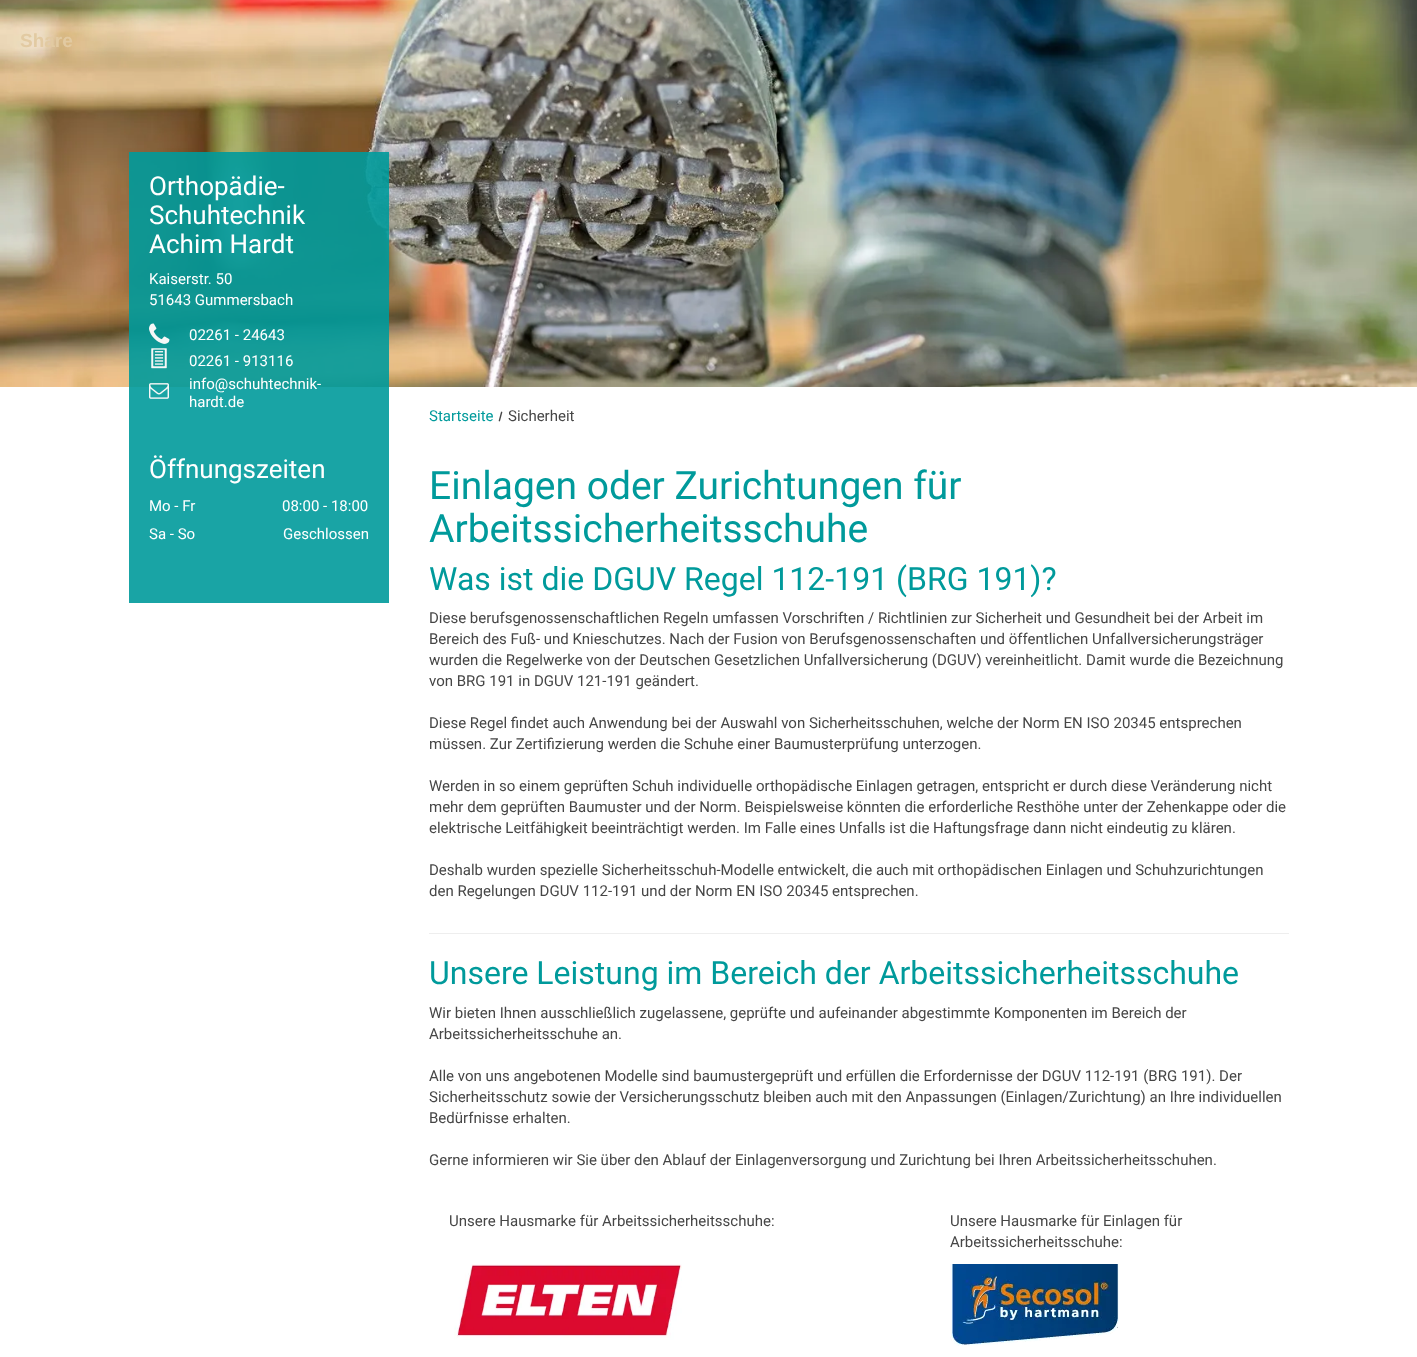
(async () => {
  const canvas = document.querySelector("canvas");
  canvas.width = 1417;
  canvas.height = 1357;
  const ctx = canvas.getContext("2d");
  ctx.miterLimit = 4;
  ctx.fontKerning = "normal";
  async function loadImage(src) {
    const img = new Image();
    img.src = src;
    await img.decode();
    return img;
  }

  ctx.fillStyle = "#ffffff";
  ctx.fillRect(0, 0, 1417, 1357);
  ctx.drawImage(await loadImage("img/1.png"), 0, 0, 1417, 387);
  ctx.fillStyle = "rgba(0, 154, 155, 0.9)";
  ctx.fillRect(129, 152, 260, 451);
  ctx.drawImage(await loadImage("img/2.png"), 149, 323, 21, 21);
  ctx.drawImage(await loadImage("img/3.png"), 151, 348, 16, 21);
  ctx.drawImage(await loadImage("img/4.png"), 149, 383, 20, 16);
  ctx.drawImage(await loadImage("img/5.png"), 498, 411, 5, 11);
  ctx.fillStyle = "#eeeeee";
  ctx.fillRect(429, 933, 860, 1);
  ctx.drawImage(await loadImage("img/6.png"), 454, 1264, 228, 76);
  ctx.drawImage(await loadImage("img/7.png"), 950, 1264, 169, 82);
  ctx.font = "bold 19px Liberation Sans";
  ctx.fillStyle = "#e2caa2";
  ctx.fillText("Share", 20, 47);
  ctx.font = "26px Roboto";
  ctx.fillStyle = "#ffffff";
  for (const [text, x, y] of [
    ["Orthopädie-", 149, 195],
    ["Schuhtechnik", 149, 224],
    ["Achim Hardt", 149, 253],
  ]) {
    ctx.fillText(text, x, y);
  }
  ctx.font = "15px Roboto";
  for (const [text, x, y] of [
    ["Kaiserstr. 50", 149, 284],
    ["51643 Gummersbach", 149, 305],
    ["02261 - 24643", 189, 340],
    ["02261 - 913116", 189, 366],
    ["info@schuhtechnik-", 189, 389],
    ["hardt.de", 189, 407],
  ]) {
    ctx.fillText(text, x, y);
  }
  ctx.font = "26px Roboto";
  ctx.fillText("Öffnungszeiten", 149, 478);
  ctx.font = "15px Roboto";
  for (const [text, x, y] of [
    ["Mo - Fr", 149, 511],
    ["08:00 - 18:00", 282, 511],
    ["Sa - So", 149, 539],
    ["Geschlossen", 283, 539],
  ]) {
    ctx.fillText(text, x, y);
  }
  ctx.fillStyle = "#009a9b";
  ctx.fillText("Startseite", 429, 421);
  ctx.fillStyle = "#464646";
  ctx.fillText("Sicherheit", 508, 421);
  ctx.font = "39px Roboto";
  ctx.fillStyle = "#009a9b";
  ctx.fillText("Einlagen oder Zurichtungen für", 429, 499);
  ctx.fillText("Arbeitssicherheitsschuhe", 429, 542);
  ctx.font = "32px Roboto";
  ctx.fillText("Was ist die DGUV Regel 112-191 (BRG 191)?", 429, 590);
  ctx.font = "15px Roboto";
  ctx.fillStyle = "#464646";
  for (const [text, x, y] of [
    ["Diese berufsgenossenschaftlichen Regeln umfassen Vorschriften / Richtlinien zur Sicherheit und Gesundheit bei der Arbeit im", 429, 623],
    ["Bereich des Fuß- und Knieschutzes. Nach der Fusion von Berufsgenossenschaften und öffentlichen Unfallversicherungsträger", 429, 644],
    ["wurden die Regelwerke von der Deutschen Gesetzlichen Unfallversicherung (DGUV) vereinheitlicht. Damit wurde die Bezeichnung", 429, 665],
    ["von BRG 191 in DGUV 121-191 geändert.", 429, 686],
    ["Diese Regel findet auch Anwendung bei der Auswahl von Sicherheitsschuhen, welche der Norm EN ISO 20345 entsprechen", 429, 728],
    ["müssen. Zur Zertifizierung werden die Schuhe einer Baumusterprüfung unterzogen.", 429, 749],
    ["Werden in so einem geprüften Schuh individuelle orthopädische Einlagen getragen, entspricht er durch diese Veränderung nicht", 429, 791],
    ["mehr dem geprüften Baumuster und der Norm. Beispielsweise könnten die erforderliche Resthöhe unter der Zehenkappe oder die", 429, 812],
    ["elektrische Leitfähigkeit beeinträchtigt werden. Im Falle eines Unfalls ist die Haftungsfrage dann nicht eindeutig zu klären.", 429, 833],
    ["Deshalb wurden spezielle Sicherheitsschuh-Modelle entwickelt, die auch mit orthopädischen Einlagen und Schuhzurichtungen", 429, 875],
    ["den Regelungen DGUV 112-191 und der Norm EN ISO 20345 entsprechen.", 429, 896],
  ]) {
    ctx.fillText(text, x, y);
  }
  ctx.font = "32px Roboto";
  ctx.fillStyle = "#009a9b";
  ctx.fillText("Unsere Leistung im Bereich der Arbeitssicherheitsschuhe", 429, 984);
  ctx.font = "15px Roboto";
  ctx.fillStyle = "#464646";
  for (const [text, x, y] of [
    ["Wir bieten Ihnen ausschließlich zugelassene, geprüfte und aufeinander abgestimmte Komponenten im Bereich der", 429, 1018],
    ["Arbeitssicherheitsschuhe an.", 429, 1039],
    ["Alle von uns angebotenen Modelle sind baumustergeprüft und erfüllen die Erfordernisse der DGUV 112-191 (BRG 191). Der", 429, 1081],
    ["Sicherheitsschutz sowie der Versicherungsschutz bleiben auch mit den Anpassungen (Einlagen/Zurichtung) an Ihre individuellen", 429, 1102],
    ["Bedürfnisse erhalten.", 429, 1123],
    ["Gerne informieren wir Sie über den Ablauf der Einlagenversorgung und Zurichtung bei Ihren Arbeitssicherheitsschuhen.", 429, 1165],
    ["Unsere Hausmarke für Arbeitssicherheitsschuhe:", 449, 1226],
    ["Unsere Hausmarke für Einlagen für", 950, 1226],
    ["Arbeitssicherheitsschuhe:", 950, 1247],
  ]) {
    ctx.fillText(text, x, y);
  }
})();
